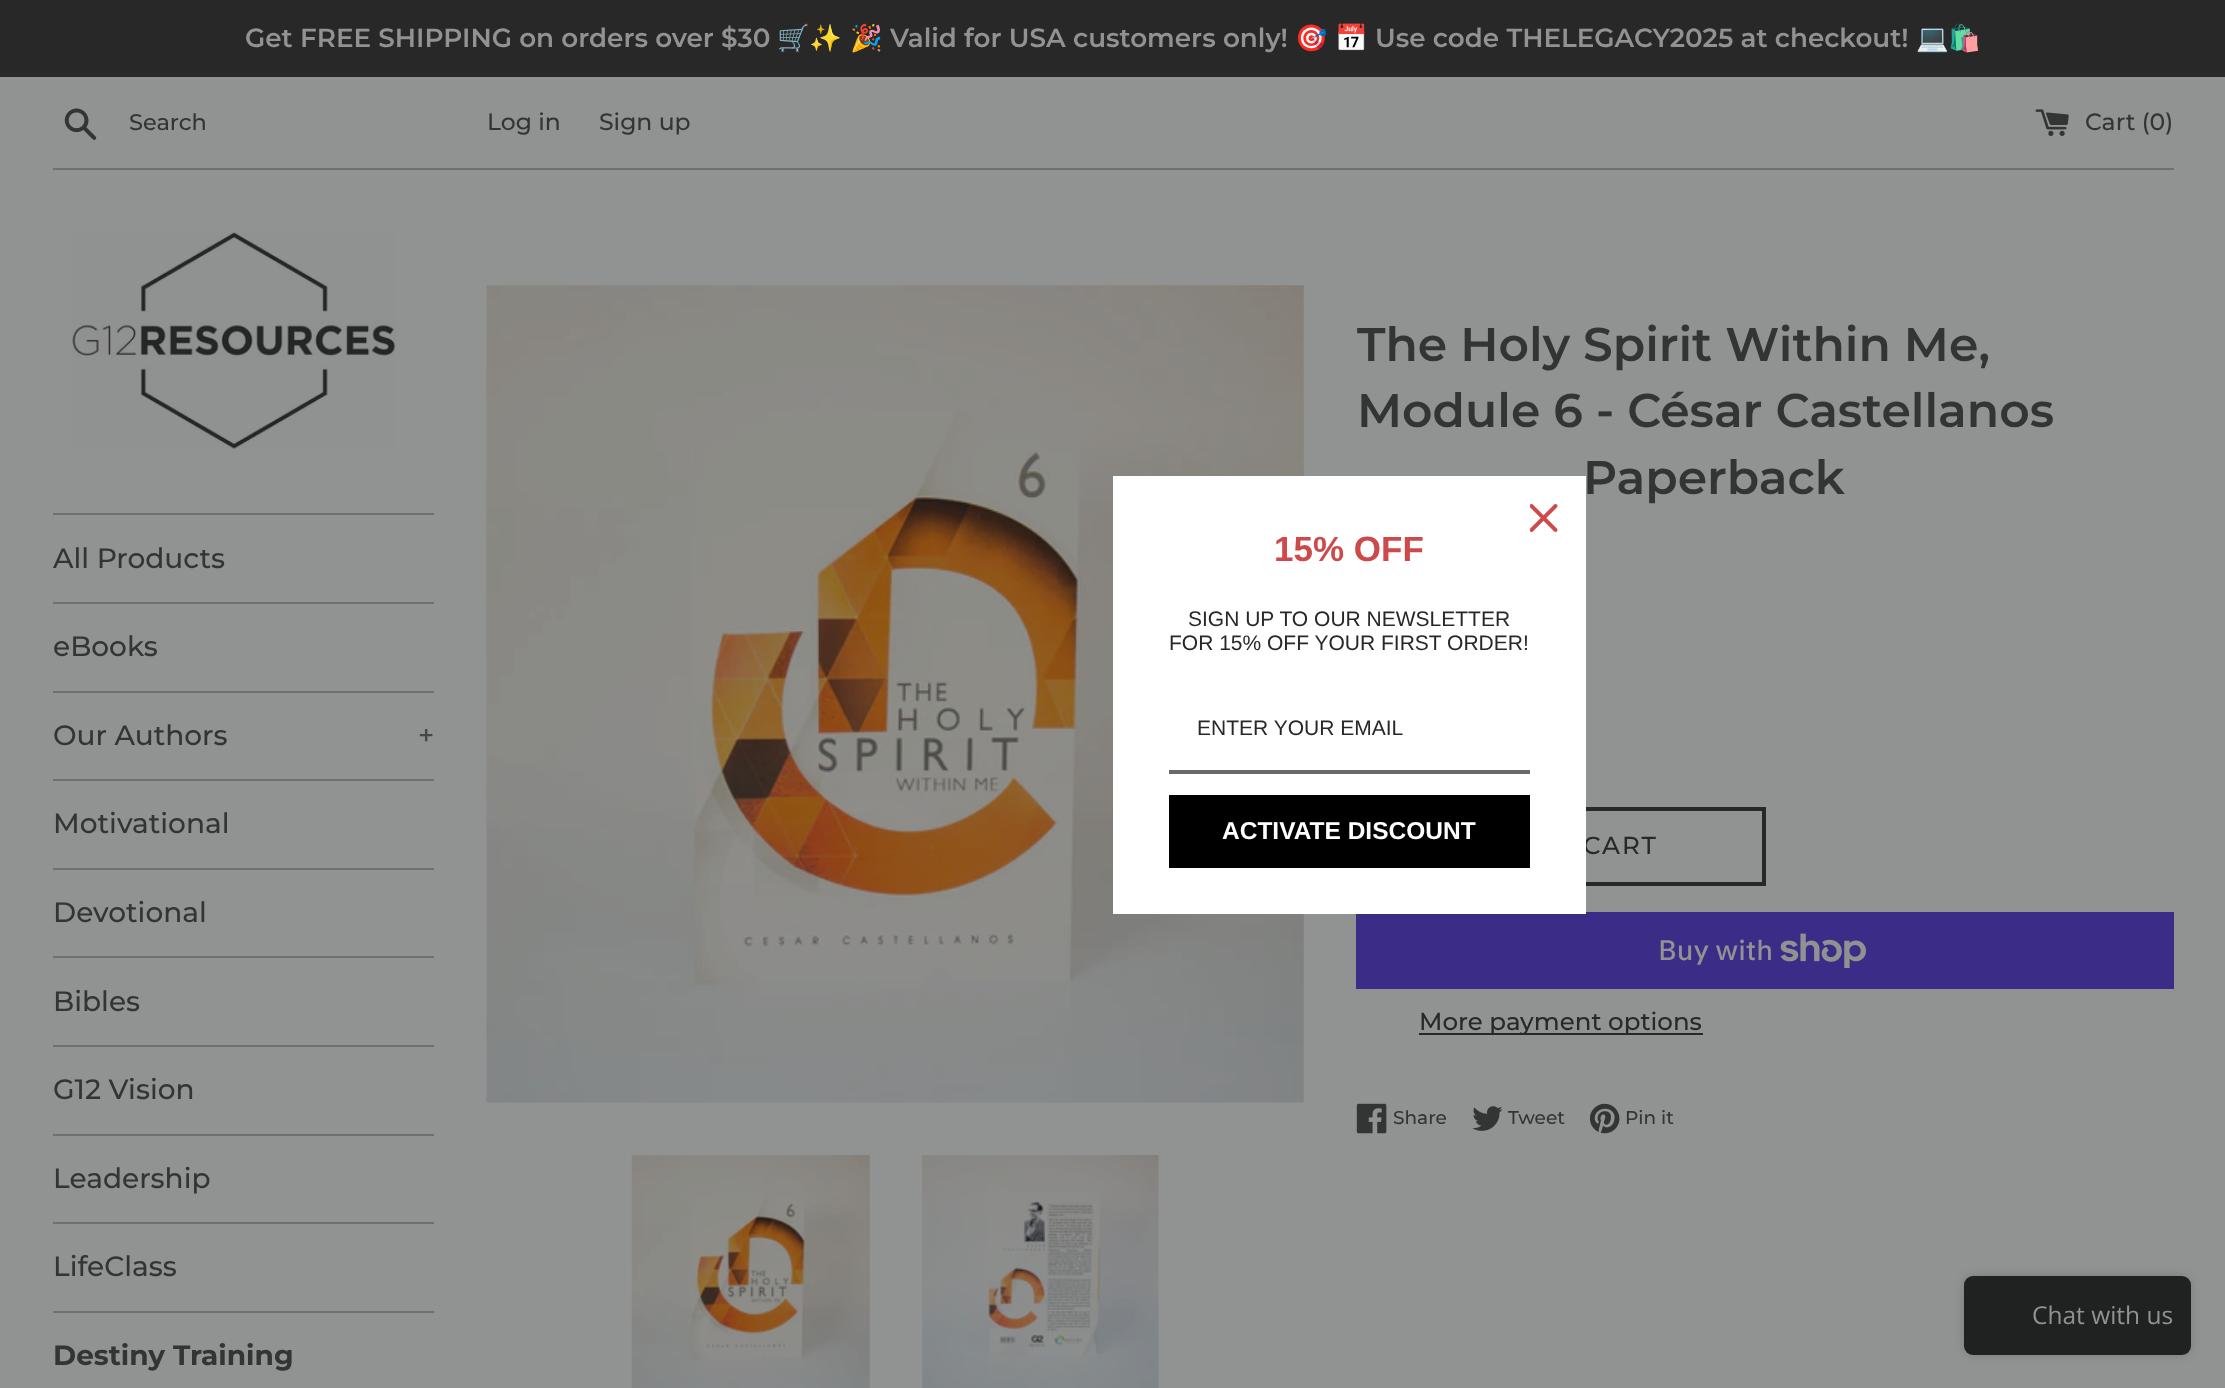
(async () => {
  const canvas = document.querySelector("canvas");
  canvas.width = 2225;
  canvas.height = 1388;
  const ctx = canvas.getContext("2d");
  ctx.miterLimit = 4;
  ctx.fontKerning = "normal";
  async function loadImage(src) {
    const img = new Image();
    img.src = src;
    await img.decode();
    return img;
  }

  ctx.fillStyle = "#919292";
  ctx.fillRect(0, 0, 2225, 1388);
  ctx.fillStyle = "#282828";
  ctx.fillRect(0, 0, 2225, 77);
  ctx.drawImage(await loadImage("img/1.png"), 64, 108, 33, 32);
  ctx.drawImage(await loadImage("img/2.png"), 2035, 109, 34, 27);
  ctx.fillStyle = "#6f7070";
  ctx.fillRect(53, 168, 2121, 2);
  ctx.drawImage(await loadImage("img/3.png"), 72, 232, 324, 217);
  for (const [x, y, w, h, color] of [
    [53, 513, 381, 2, "#6f7070"],
    [53, 602, 381, 2, "#6f7070"],
    [53, 691, 381, 2, "#6f7070"],
    [53, 779, 381, 2, "#6f7070"],
    [53, 868, 381, 2, "#6f7070"],
    [53, 956, 381, 2, "#6f7070"],
    [53, 1045, 381, 2, "#6f7070"],
    [53, 1134, 381, 2, "#6f7070"],
    [53, 1222, 381, 2, "#6f7070"],
    [53, 1311, 381, 2, "#6f7070"],
  ]) {
    ctx.fillStyle = color;
    ctx.fillRect(x, y, w, h);
  }
  ctx.drawImage(await loadImage("img/4.png"), 486, 285, 818, 818);
  ctx.drawImage(await loadImage("img/5.png"), 631, 1155, 239, 233);
  ctx.drawImage(await loadImage("img/6.png"), 922, 1155, 237, 233);
  ctx.strokeStyle = "#282828";
  ctx.lineWidth = 4;
  ctx.strokeRect(1358, 809, 406, 75);
  ctx.fillStyle = "#3b2c88";
  ctx.fillRect(1356, 912, 818, 77);
  ctx.drawImage(await loadImage("img/7.png"), 1780, 933, 86, 35);
  ctx.fillStyle = "#282828";
  ctx.fillRect(1419, 1033, 284, 2);
  ctx.drawImage(await loadImage("img/8.png"), 1356, 1103, 31, 31);
  ctx.drawImage(await loadImage("img/9.png"), 1472, 1106, 31, 25);
  ctx.drawImage(await loadImage("img/10.png"), 1589, 1103, 31, 31);
  ctx.fillStyle = "#7b7c7c";
  ctx.filter = "blur(4.5px)";
  ctx.beginPath();
  ctx.roundRect(1964, 1276, 227, 79, 9);
  ctx.fill();
  ctx.filter = "none";
  ctx.fillStyle = "#1f2220";
  ctx.beginPath();
  ctx.roundRect(1964, 1276, 227, 79, 9);
  ctx.fill();
  ctx.font = "600 26.25px Montserrat";
  ctx.fillStyle = "#919292";
  ctx.fillText("Get FREE SHIPPING on orders over $30", 245, 47);
  ctx.font = "bold 26.25px Noto Color Emoji";
  ctx.fillText("🛒✨", 777, 47);
  ctx.fillText("🎉", 850, 47);
  ctx.font = "600 26.25px Montserrat";
  ctx.fillText("Valid for USA customers only!", 890, 47);
  ctx.font = "bold 26.25px Noto Color Emoji";
  ctx.fillText("🎯", 1295, 47);
  ctx.fillText("📅", 1335, 47);
  ctx.font = "600 26.25px Montserrat";
  ctx.fillText("Use code THELEGACY2025 at checkout!", 1375, 47);
  ctx.font = "bold 26.25px Noto Color Emoji";
  ctx.fillText("💻🛍️", 1916, 47);
  ctx.font = "500 22.5px Montserrat";
  ctx.fillStyle = "#333434";
  ctx.fillText("Search", 129, 130);
  ctx.font = "500 23.5px Montserrat";
  for (const [text, x, y] of [
    ["Log in", 487, 130],
    ["Sign up", 599, 130],
    ["Cart (0)", 2085, 130],
  ]) {
    ctx.fillText(text, x, y);
  }
  ctx.font = "500 28px Montserrat";
  for (const [text, x, y] of [
    ["All Products", 53, 568],
    ["eBooks", 53, 656],
    ["Our Authors", 53, 745],
  ]) {
    ctx.fillText(text, x, y);
  }
  ctx.fillStyle = "#464747";
  ctx.fillText("+", 418, 745);
  ctx.fillStyle = "#333434";
  for (const [text, x, y] of [
    ["Motivational", 53, 833],
    ["Devotional", 53, 922],
    ["Bibles", 53, 1011],
    ["G12 Vision", 53, 1099],
    ["Leadership", 53, 1188],
    ["LifeClass", 53, 1276],
  ]) {
    ctx.fillText(text, x, y);
  }
  ctx.font = "bold 28px Montserrat";
  ctx.fillText("Destiny Training", 53, 1365);
  ctx.font = "600 47.25px Montserrat";
  for (const [text, x, y] of [
    ["The Holy Spirit Within Me,", 1357, 361],
    ["Module 6 - César Castellanos", 1357, 427],
    ["Paperback", 1583, 494],
  ]) {
    ctx.fillText(text, x, y);
  }
  ctx.letterSpacing = "2px";
  ctx.font = "500 24.5px Montserrat";
  ctx.fillStyle = "#282828";
  ctx.fillText("CART", 1583, 854);
  ctx.letterSpacing = "0px";
  ctx.font = "500 28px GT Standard";
  ctx.fillStyle = "#919292";
  ctx.fillText("Buy with", 1658, 960);
  ctx.font = "500 24.5px Montserrat";
  ctx.fillStyle = "#282828";
  ctx.fillText("More payment options", 1419, 1030);
  ctx.font = "500 18.5px Montserrat";
  ctx.fillStyle = "#333434";
  for (const [text, x, y] of [
    ["Share", 1393, 1124],
    ["Tweet", 1508, 1124],
    ["Pin it", 1625, 1124],
  ]) {
    ctx.fillText(text, x, y);
  }
  ctx.fillStyle = "#ffffff";
  ctx.fillRect(1113, 476, 473, 438);
  ctx.drawImage(await loadImage("img/11.png"), 1530, 504, 28, 28);
  ctx.font = "bold 35px Liberation Sans";
  ctx.fillStyle = "#ce4a4a";
  ctx.fillText("15% OFF", 1274, 561);
  ctx.font = "21px Liberation Sans";
  ctx.fillStyle = "#282828";
  ctx.fillText("SIGN UP TO OUR NEWSLETTER", 1188, 626);
  ctx.fillText("FOR 15% OFF YOUR FIRST ORDER!", 1169, 650);
  ctx.fillStyle = "#696969";
  ctx.fillRect(1169, 770, 361, 4);
  ctx.fillStyle = "#282828";
  ctx.fillText("ENTER YOUR EMAIL", 1197, 735);
  ctx.fillStyle = "#000000";
  ctx.fillRect(1169, 795, 361, 73);
  ctx.font = "bold 24.5px Liberation Sans";
  ctx.fillStyle = "#ffffff";
  ctx.fillText("ACTIVATE DISCOUNT", 1222, 839);
  ctx.font = "24.5px Open Sans";
  ctx.fillStyle = "#919292";
  ctx.fillText("Chat with us", 2032, 1324);
})();
